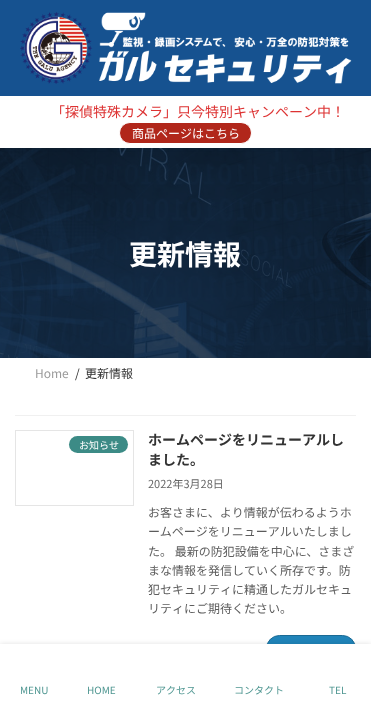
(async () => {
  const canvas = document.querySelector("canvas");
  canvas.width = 371;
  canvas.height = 706;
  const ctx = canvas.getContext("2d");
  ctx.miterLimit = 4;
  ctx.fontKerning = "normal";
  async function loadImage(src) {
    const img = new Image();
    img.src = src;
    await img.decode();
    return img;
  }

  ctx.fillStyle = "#ffffff";
  ctx.fillRect(0, 0, 371, 706);
  ctx.drawImage(await loadImage("img/2.png"), 0, 148, 371, 210);
  ctx.fillStyle = "rgba(0, 0, 0, 0.05)";
  ctx.filter = "blur(1.5px)";
  ctx.beginPath();
  ctx.rect(0, 1, 371, 148);
  ctx.fill();
  ctx.filter = "none";
  ctx.fillStyle = "#165290";
  ctx.fillRect(0, 0, 371, 96);
  ctx.drawImage(await loadImage("img/1.png"), 20, 12, 332, 72);
  ctx.fillStyle = "#ffffff";
  ctx.fillRect(0, 96, 371, 52);
  ctx.fillStyle = "#b1271b";
  ctx.beginPath();
  ctx.roundRect(119.5, 122.5, 132, 21, 10.5);
  ctx.fill();
  ctx.strokeStyle = "#ffffff";
  ctx.stroke();
  ctx.fillStyle = "#f0f0f0";
  ctx.fillRect(15, 415, 341, 1);
  ctx.strokeStyle = "#e5e5e5";
  ctx.strokeRect(15.5, 430.5, 118, 75);
  ctx.fillStyle = "#3c8b86";
  ctx.beginPath();
  ctx.roundRect(69, 436, 59, 17, 8.5);
  ctx.fill();
  ctx.fillStyle = "#2084b9";
  ctx.beginPath();
  ctx.roundRect(266.5, 635.5, 89, 26, 13);
  ctx.fill();
  ctx.strokeStyle = "#1a6a94";
  ctx.stroke();
  ctx.fillStyle = "rgba(0, 0, 0, 0.12)";
  ctx.filter = "blur(2.5px)";
  ctx.beginPath();
  ctx.rect(0, 644, 371, 62);
  ctx.fill();
  ctx.filter = "none";
  ctx.fillStyle = "#ffffff";
  ctx.fillRect(0, 644, 371, 62);
  ctx.font = "14px Noto Sans JP";
  ctx.fillStyle = "#dd3333";
  ctx.fillText("「探偵特殊カメラ」只今特別キャンペーン中！", 51, 117);
  ctx.font = "12px Noto Sans JP";
  ctx.fillStyle = "#ffffff";
  ctx.fillText("商品ページはこちら", 132, 138);
  ctx.font = "bold 28px Noto Sans JP";
  ctx.fillText("更新情報", 129, 265);
  ctx.font = "12px Noto Sans JP";
  ctx.fillStyle = "#999999";
  ctx.fillText("Home", 35, 378);
  ctx.fillStyle = "#333333";
  ctx.fillText("/", 75, 378);
  ctx.fillText("更新情報", 85, 378);
  ctx.font = "10px Noto Sans JP";
  ctx.fillStyle = "#ffffff";
  ctx.fillText("お知らせ", 79, 449);
  ctx.font = "bold 14px Noto Sans JP";
  ctx.fillStyle = "#333333";
  ctx.fillText("ホームページをリニューアルし", 148, 445);
  ctx.fillText("ました。", 148, 465);
  ctx.font = "11px Noto Sans JP";
  ctx.fillStyle = "#666666";
  ctx.fillText("2022年3月28日", 148, 488);
  ctx.font = "12px Noto Sans JP";
  ctx.fillStyle = "#5c5c5c";
  for (const [text, x, y] of [
    ["お客さまに、より情報が伝わるようホ", 148, 517],
    ["ームページをリニューアルいたしまし", 148, 536],
    ["た。 最新の防犯設備を中心に、さまざ", 148, 556],
    ["まな情報を発信していく所存です。防", 148, 575],
    ["犯セキュリティに精通したガルセキュ", 148, 594],
    ["リティにご期待ください。", 148, 613],
  ]) {
    ctx.fillText(text, x, y);
  }
  ctx.font = "10px Noto Sans JP";
  ctx.fillStyle = "#509792";
  for (const [text, x, y] of [
    ["MENU", 20, 694],
    ["HOME", 87, 694],
    ["アクセス", 156, 694],
    ["コンタクト", 234, 694],
    ["TEL", 329, 694],
  ]) {
    ctx.fillText(text, x, y);
  }
})();
